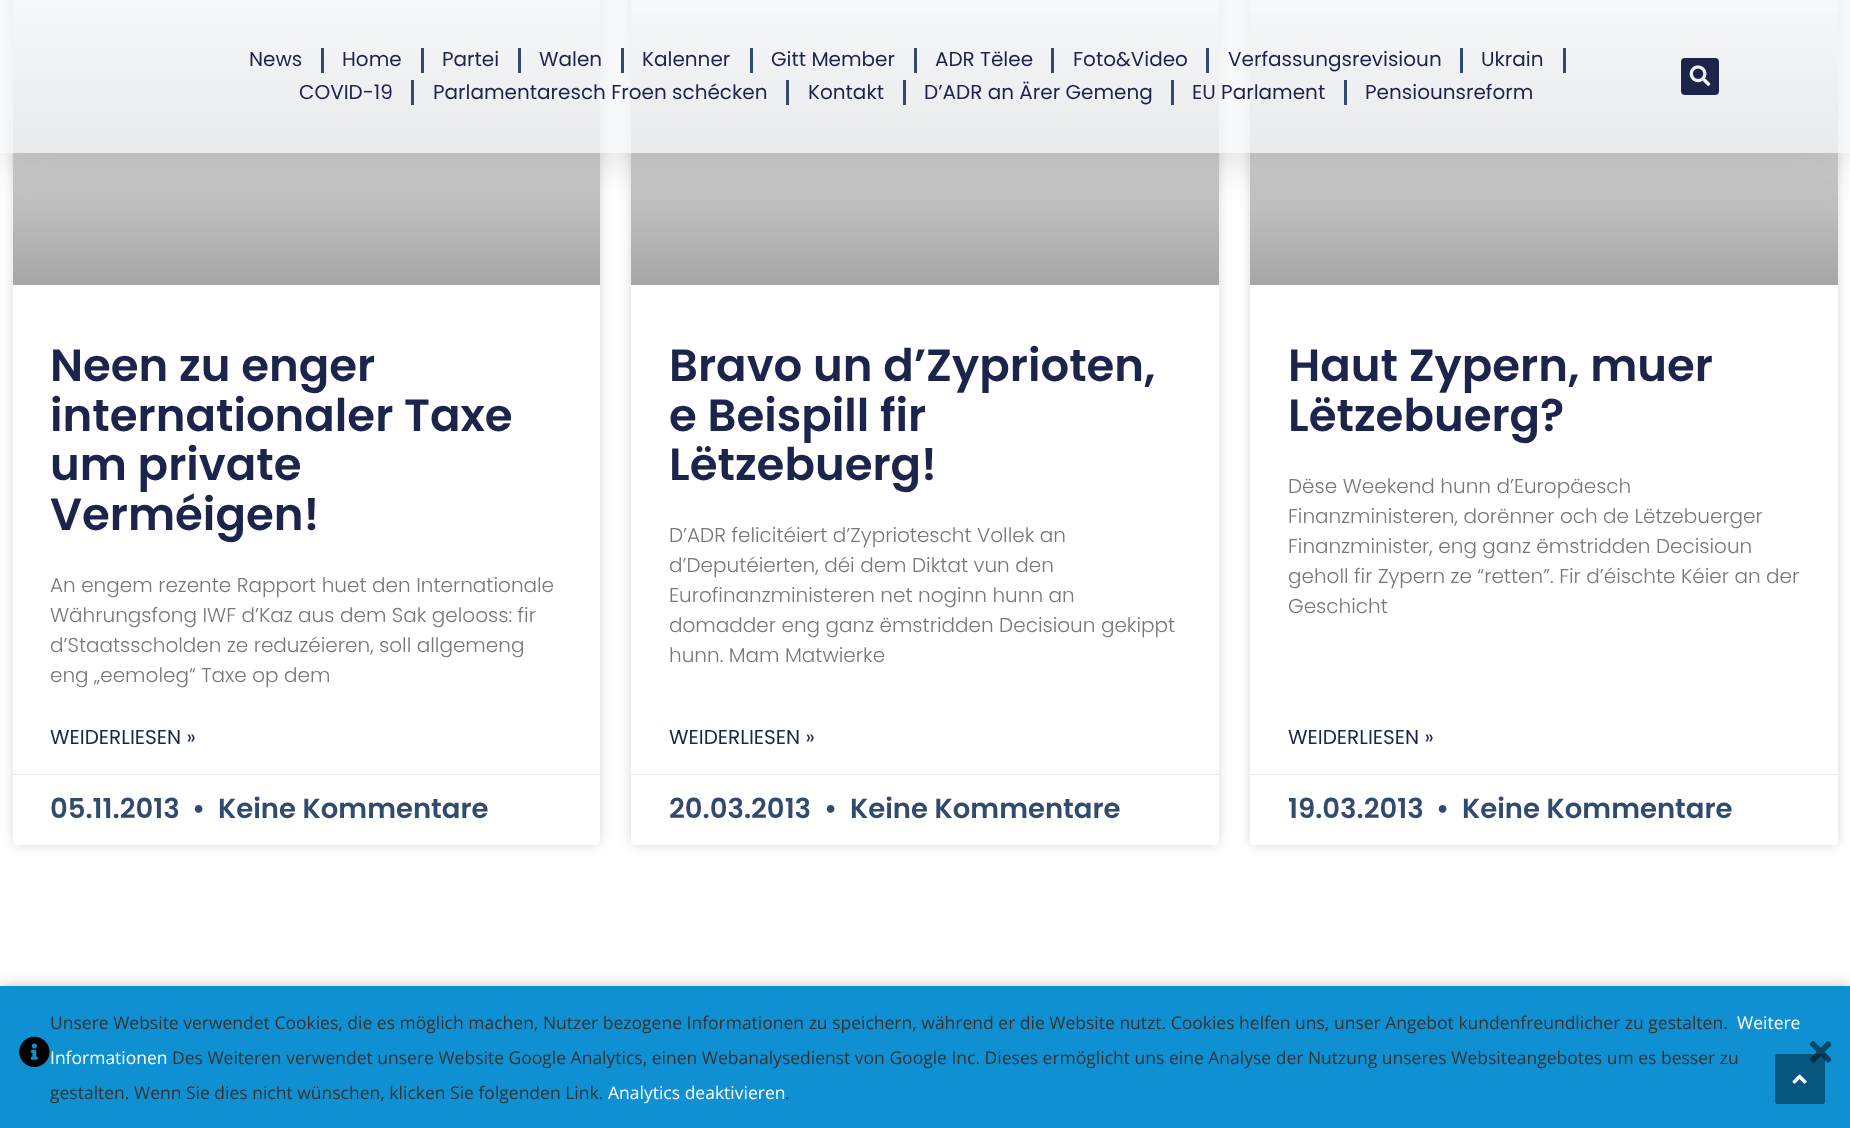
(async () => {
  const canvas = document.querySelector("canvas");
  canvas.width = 1850;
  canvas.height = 1128;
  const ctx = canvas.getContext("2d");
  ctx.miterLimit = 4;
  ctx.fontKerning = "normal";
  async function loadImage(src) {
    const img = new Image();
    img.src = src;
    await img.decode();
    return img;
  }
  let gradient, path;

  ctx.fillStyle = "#ffffff";
  ctx.fillRect(0, 0, 1850, 1128);
  ctx.save();
  path = new Path2D("M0 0H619V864H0ZM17-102H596C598-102 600-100 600-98V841C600 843 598 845 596 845H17C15 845 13 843 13 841V-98C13-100 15-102 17-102Z");
  ctx.clip(path, "evenodd");
  ctx.fillStyle = "rgba(0, 0, 0, 0.15)";
  ctx.filter = "blur(6px)";
  ctx.beginPath();
  ctx.roundRect(13, -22, 587, 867, 4);
  ctx.fill();
  ctx.filter = "none";
  ctx.restore();
  gradient = ctx.createLinearGradient(306, 285, 306, -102);
  gradient.addColorStop(0, "#a6a6a6");
  gradient.addColorStop(0.75, "#ffffff");
  ctx.fillStyle = gradient;
  ctx.fillRect(13, 3, 587, 282);
  ctx.save();
  path = new Path2D("M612 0H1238V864H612ZM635-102H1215C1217-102 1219-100 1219-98V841C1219 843 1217 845 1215 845H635C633 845 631 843 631 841V-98C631-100 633-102 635-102Z");
  ctx.clip(path, "evenodd");
  ctx.fillStyle = "rgba(0, 0, 0, 0.15)";
  ctx.filter = "blur(6px)";
  ctx.beginPath();
  ctx.roundRect(631, -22, 588, 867, 4);
  ctx.fill();
  ctx.filter = "none";
  ctx.restore();
  gradient = ctx.createLinearGradient(925, 285, 925, -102);
  gradient.addColorStop(0, "rgba(0, 0, 0, 0.35)");
  gradient.addColorStop(0.75, "rgba(0, 0, 0, 0)");
  ctx.fillStyle = gradient;
  ctx.fillRect(631, 13, 588, 272);
  ctx.save();
  path = new Path2D("M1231 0H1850V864H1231ZM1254-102H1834C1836-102 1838-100 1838-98V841C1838 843 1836 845 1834 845H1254C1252 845 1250 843 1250 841V-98C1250-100 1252-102 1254-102Z");
  ctx.clip(path, "evenodd");
  ctx.fillStyle = "rgba(0, 0, 0, 0.15)";
  ctx.filter = "blur(6px)";
  ctx.beginPath();
  ctx.roundRect(1250, -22, 588, 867, 4);
  ctx.fill();
  ctx.filter = "none";
  ctx.restore();
  gradient = ctx.createLinearGradient(1544, 285, 1544, -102);
  gradient.addColorStop(0, "rgba(0, 0, 0, 0.35)");
  gradient.addColorStop(0.75, "rgba(0, 0, 0, 0)");
  ctx.fillStyle = gradient;
  ctx.fillRect(1250, 13, 588, 272);
  ctx.save();
  path = new Path2D("M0 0H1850V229H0ZM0 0H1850V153H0Z");
  ctx.clip(path, "evenodd");
  ctx.fillStyle = "rgba(0, 0, 0, 0.16)";
  ctx.filter = "blur(25px)";
  ctx.beginPath();
  ctx.rect(0, 0, 1850, 153);
  ctx.fill();
  ctx.filter = "none";
  ctx.restore();
  for (const [x, y, w, h, color] of [
    [0, 0, 1850, 153, "rgba(243, 245, 248, 0.7)"],
    [321, 48, 3, 25, "#324a6d"],
    [421, 48, 3, 25, "#324a6d"],
    [518, 48, 3, 25, "#324a6d"],
    [621, 48, 3, 25, "#324a6d"],
    [750, 48, 3, 25, "#324a6d"],
    [914, 48, 3, 25, "#324a6d"],
    [1051, 48, 3, 25, "#324a6d"],
    [1206, 48, 3, 25, "#324a6d"],
    [1460, 48, 3, 25, "#324a6d"],
    [1563, 48, 3, 25, "#324a6d"],
    [411, 80, 3, 25, "#324a6d"],
    [786, 80, 3, 25, "#324a6d"],
    [903, 80, 3, 25, "#324a6d"],
    [1171, 80, 3, 25, "#324a6d"],
    [1344, 80, 3, 25, "#324a6d"],
  ]) {
    ctx.fillStyle = color;
    ctx.fillRect(x, y, w, h);
  }
  ctx.fillStyle = "#1c244b";
  ctx.beginPath();
  ctx.roundRect(1681, 58, 38, 37, 4);
  ctx.fill();
  ctx.drawImage(await loadImage("img/1.png"), 1689, 65, 22, 21);
  for (const [x, y, w, h, color] of [
    [13, 774, 587, 1, "#eaeaea"],
    [631, 774, 588, 1, "#eaeaea"],
    [1250, 774, 588, 1, "#eaeaea"],
  ]) {
    ctx.fillStyle = color;
    ctx.fillRect(x, y, w, h);
  }
  ctx.fillStyle = "rgba(0, 0, 0, 0.4)";
  ctx.filter = "blur(9.5px)";
  ctx.beginPath();
  ctx.rect(0, 991, 1850, 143);
  ctx.fill();
  ctx.filter = "none";
  ctx.fillStyle = "#0e90d2";
  ctx.fillRect(0, 986, 1850, 142);
  ctx.drawImage(await loadImage("img/2.png"), 19, 1036, 31, 31);
  ctx.drawImage(await loadImage("img/3.png"), 1810, 1041, 21, 22);
  ctx.fillStyle = "rgba(0, 0, 0, 0.4)";
  ctx.beginPath();
  ctx.roundRect(1775, 1054, 50, 50, 2.5);
  ctx.fill();
  ctx.drawImage(await loadImage("img/4.png"), 1792, 1074, 15, 10);
  ctx.font = "20px Poppins";
  ctx.fillStyle = "#1c244b";
  for (const [text, x, y] of [
    ["News", 249, 66],
    ["Home", 342, 66],
    ["Partei", 442, 66],
    ["Walen", 539, 66],
    ["Kalenner", 642, 66],
    ["Gitt Member", 771, 66],
    ["ADR Tëlee", 935, 66],
    ["Foto&Video", 1073, 66],
    ["Verfassungsrevisioun", 1228, 66],
    ["Ukrain", 1481, 66],
    ["COVID-19", 299, 99],
    ["Parlamentaresch Froen schécken", 433, 99],
    ["Kontakt", 808, 99],
    ["D’ADR an Ärer Gemeng", 924, 99],
    ["EU Parlament", 1192, 99],
    ["Pensiounsreform", 1365, 99],
  ]) {
    ctx.fillText(text, x, y);
  }
  ctx.font = "600 45px Poppins";
  for (const [text, x, y] of [
    ["Neen zu enger", 50, 381],
    ["internationaler Taxe", 50, 431],
    ["um private", 50, 480],
    ["Verméigen!", 50, 530],
  ]) {
    ctx.fillText(text, x, y);
  }
  ctx.font = "300 20px Poppins";
  ctx.fillStyle = "#777777";
  for (const [text, x, y] of [
    ["An engem rezente Rapport huet den Internationale", 50, 592],
    ["Währungsfong IWF d’Kaz aus dem Sak gelooss: fir", 50, 622],
    ["d’Staatsscholden ze reduzéieren, soll allgemeng", 50, 652],
    ["eng „eemoleg“ Taxe op dem", 50, 682],
  ]) {
    ctx.fillText(text, x, y);
  }
  ctx.font = "20px Poppins";
  ctx.fillStyle = "#1c244b";
  ctx.fillText("WEIDERLIESEN »", 50, 744);
  ctx.font = "600 27.5px Poppins";
  ctx.fillStyle = "#324a6d";
  for (const [text, x, y] of [
    ["05.11.2013", 50, 818],
    ["•", 192, 818],
    ["Keine Kommentare", 218, 818],
  ]) {
    ctx.fillText(text, x, y);
  }
  ctx.font = "600 45px Poppins";
  ctx.fillStyle = "#1c244b";
  for (const [text, x, y] of [
    ["Bravo un d’Zyprioten,", 669, 381],
    ["e Beispill fir", 669, 431],
    ["Lëtzebuerg!", 669, 480],
  ]) {
    ctx.fillText(text, x, y);
  }
  ctx.font = "300 20px Poppins";
  ctx.fillStyle = "#777777";
  for (const [text, x, y] of [
    ["D’ADR felicitéiert d’Zypriotescht Vollek an", 669, 542],
    ["d’Deputéierten, déi dem Diktat vun den", 669, 572],
    ["Eurofinanzministeren net noginn hunn an", 669, 602],
    ["domadder eng ganz ëmstridden Decisioun gekippt", 669, 632],
    ["hunn. Mam Matwierke", 669, 662],
  ]) {
    ctx.fillText(text, x, y);
  }
  ctx.font = "20px Poppins";
  ctx.fillStyle = "#1c244b";
  ctx.fillText("WEIDERLIESEN »", 669, 744);
  ctx.font = "600 27.5px Poppins";
  ctx.fillStyle = "#324a6d";
  for (const [text, x, y] of [
    ["20.03.2013", 669, 818],
    ["•", 824, 818],
    ["Keine Kommentare", 850, 818],
  ]) {
    ctx.fillText(text, x, y);
  }
  ctx.font = "600 45px Poppins";
  ctx.fillStyle = "#1c244b";
  ctx.fillText("Haut Zypern, muer", 1288, 381);
  ctx.fillText("Lëtzebuerg?", 1288, 431);
  ctx.font = "300 20px Poppins";
  ctx.fillStyle = "#777777";
  for (const [text, x, y] of [
    ["Dëse Weekend hunn d’Europäesch", 1288, 493],
    ["Finanzministeren, dorënner och de Lëtzebuerger", 1288, 523],
    ["Finanzminister, eng ganz ëmstridden Decisioun", 1288, 553],
    ["geholl fir Zypern ze “retten”. Fir d’éischte Kéier an der", 1288, 583],
    ["Geschicht", 1288, 613],
  ]) {
    ctx.fillText(text, x, y);
  }
  ctx.font = "20px Poppins";
  ctx.fillStyle = "#1c244b";
  ctx.fillText("WEIDERLIESEN »", 1288, 744);
  ctx.font = "600 27.5px Poppins";
  ctx.fillStyle = "#324a6d";
  for (const [text, x, y] of [
    ["19.03.2013", 1288, 818],
    ["•", 1436, 818],
    ["Keine Kommentare", 1462, 818],
  ]) {
    ctx.fillText(text, x, y);
  }
  ctx.font = "17.5px Open Sans";
  ctx.fillStyle = "#333333";
  ctx.fillText("Unsere Website verwendet Cookies, die es möglich machen, Nutzer bezogene Informationen zu speichern, während er die Website nutzt. Cookies helfen uns, unser Angebot kundenfreundlicher zu gestalten.", 50, 1029);
  ctx.fillStyle = "#ffffff";
  ctx.fillText("Weitere", 1737, 1029);
  ctx.fillText("Informationen", 50, 1064);
  ctx.fillStyle = "#333333";
  ctx.fillText("Des Weiteren verwendet unsere Website Google Analytics, einen Webanalysedienst von Google Inc. Dieses ermöglicht uns eine Analyse der Nutzung unseres Websiteangebotes um es besser zu", 172, 1064);
  ctx.fillText("gestalten. Wenn Sie dies nicht wünschen, klicken Sie folgenden Link.", 50, 1099);
  ctx.fillStyle = "#ffffff";
  ctx.fillText("Analytics deaktivieren", 608, 1099);
  ctx.fillStyle = "#333333";
  ctx.fillText(".", 785, 1099);
})();
